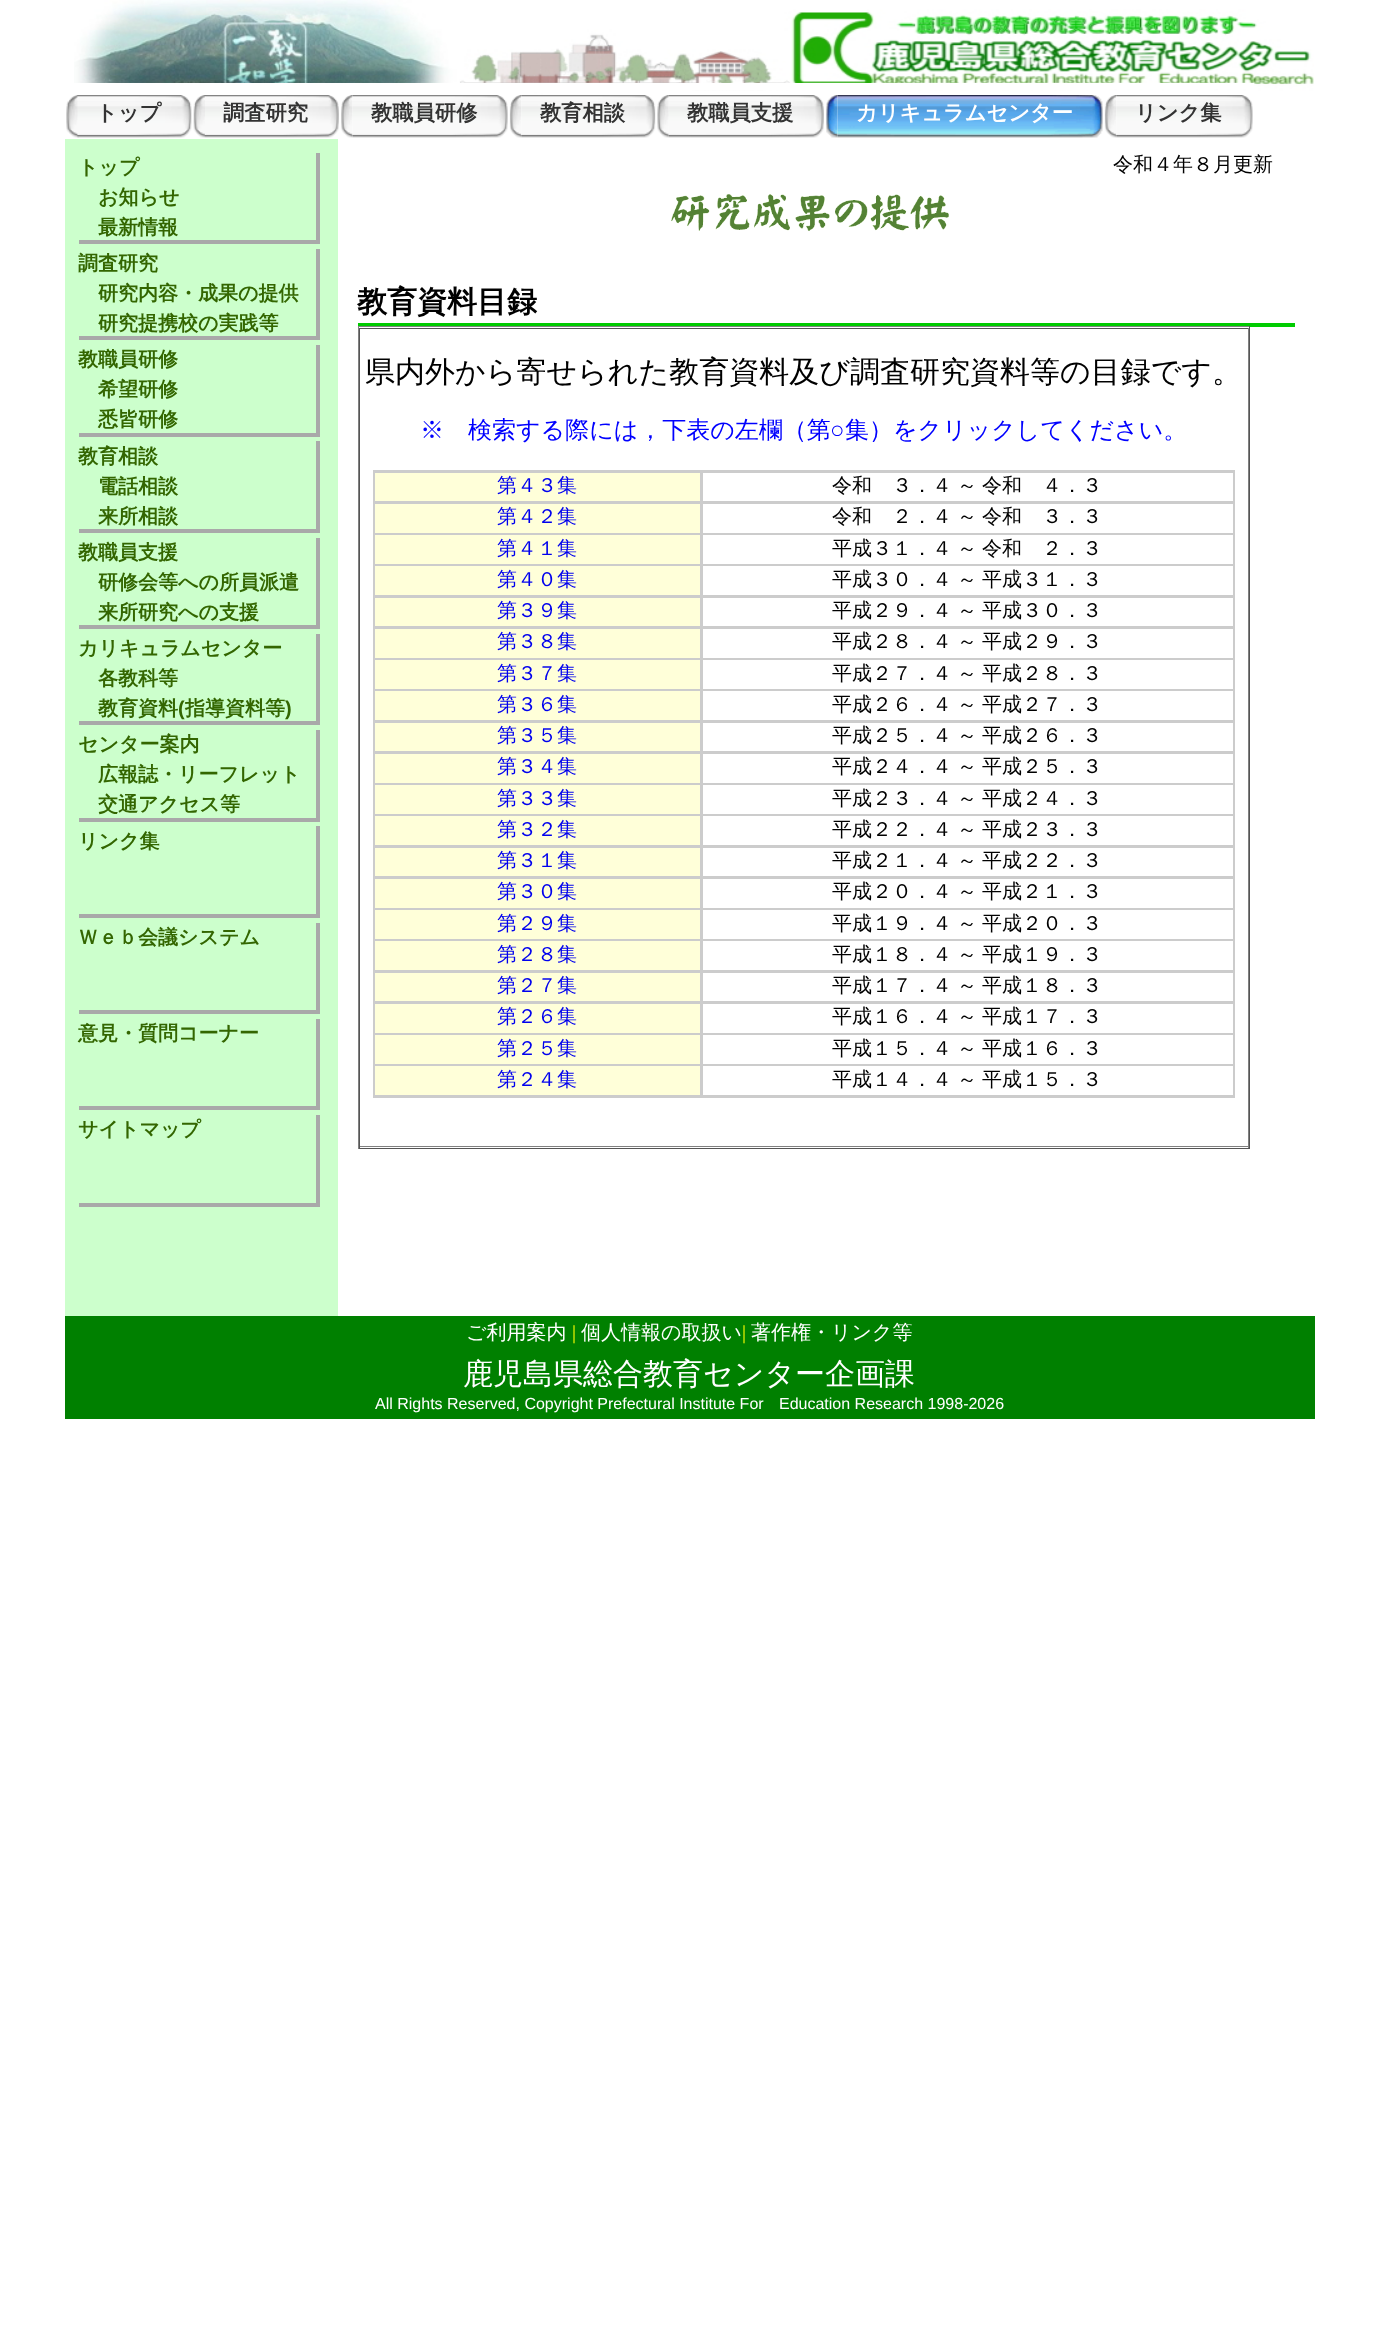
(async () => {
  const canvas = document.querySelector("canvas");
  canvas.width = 1378;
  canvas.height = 2328;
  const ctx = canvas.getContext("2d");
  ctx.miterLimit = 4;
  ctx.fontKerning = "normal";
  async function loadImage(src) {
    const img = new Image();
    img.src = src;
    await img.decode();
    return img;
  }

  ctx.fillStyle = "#ffffff";
  ctx.fillRect(0, 0, 1378, 2328);
  ctx.drawImage(await loadImage("img/1.png"), 74, 0, 1240, 95);
  for (const [x, y, w, h, color] of [
    [74, 83, 435, 12, "#ffffff"],
    [509, 83, 147, 9, "#ffffff"],
    [656, 83, 448, 7, "#ffffff"],
    [1104, 83, 150, 6, "#ffffff"],
  ]) {
    ctx.fillStyle = color;
    ctx.fillRect(x, y, w, h);
  }
  ctx.drawImage(await loadImage("img/2.png"), 66, 95, 13, 43);
  ctx.drawImage(await loadImage("img/3.png"), 77, 95, 115, 43);
  ctx.drawImage(await loadImage("img/4.png"), 193, 95, 12, 43);
  ctx.drawImage(await loadImage("img/5.png"), 205, 95, 134, 43);
  ctx.drawImage(await loadImage("img/6.png"), 341, 95, 12, 43);
  ctx.drawImage(await loadImage("img/7.png"), 352, 95, 156, 43);
  ctx.drawImage(await loadImage("img/8.png"), 509, 95, 13, 43);
  ctx.drawImage(await loadImage("img/9.png"), 521, 95, 135, 43);
  ctx.drawImage(await loadImage("img/10.png"), 657, 95, 12, 43);
  ctx.drawImage(await loadImage("img/11.png"), 668, 95, 156, 43);
  ctx.drawImage(await loadImage("img/12.png"), 826, 95, 12, 43);
  ctx.drawImage(await loadImage("img/13.png"), 837, 95, 266, 43);
  ctx.drawImage(await loadImage("img/14.png"), 1104, 95, 13, 43);
  ctx.drawImage(await loadImage("img/15.png"), 1116, 95, 137, 43);
  for (const [x, y, w, h, color] of [
    [65, 139, 273, 1177, "#ccffcc"],
    [316, 153, 4, 91, "#a9a9a9"],
    [79, 240, 241, 4, "#a9a9a9"],
    [316, 249, 4, 91, "#a9a9a9"],
    [79, 336, 241, 4, "#a9a9a9"],
    [316, 345, 4, 91, "#a9a9a9"],
    [79, 433, 241, 4, "#a9a9a9"],
    [316, 441, 4, 92, "#a9a9a9"],
    [79, 529, 241, 4, "#a9a9a9"],
    [316, 538, 4, 91, "#a9a9a9"],
    [79, 625, 241, 4, "#a9a9a9"],
    [316, 634, 4, 91, "#a9a9a9"],
    [79, 721, 241, 4, "#a9a9a9"],
    [316, 730, 4, 91, "#a9a9a9"],
    [79, 818, 241, 4, "#a9a9a9"],
    [316, 826, 4, 92, "#a9a9a9"],
    [79, 914, 241, 4, "#a9a9a9"],
    [316, 923, 4, 91, "#a9a9a9"],
    [79, 1010, 241, 4, "#a9a9a9"],
    [316, 1019, 4, 91, "#a9a9a9"],
    [79, 1106, 241, 4, "#a9a9a9"],
    [316, 1115, 4, 91, "#a9a9a9"],
    [79, 1203, 241, 4, "#a9a9a9"],
  ]) {
    ctx.fillStyle = color;
    ctx.fillRect(x, y, w, h);
  }
  ctx.drawImage(await loadImage("img/16.png"), 671, 194, 278, 37);
  for (const [x, y, w, h, color] of [
    [358, 323, 937, 4, "#00cc00"],
    [358, 326, 892, 1, "#808080"],
    [1249, 326, 1, 823, "#555555"],
    [358, 1148, 892, 1, "#555555"],
    [358, 326, 1, 823, "#808080"],
    [359, 328, 890, 1, "#555555"],
    [1248, 328, 1, 820, "#808080"],
    [359, 1146, 890, 1, "#808080"],
    [359, 328, 1, 820, "#555555"],
    [373, 470, 862, 628, "#cccccc"],
    [375, 473, 325, 28, "#ffffd9"],
    [703, 473, 530, 28, "#ffffff"],
    [375, 504, 325, 29, "#ffffd9"],
    [703, 504, 530, 29, "#ffffff"],
    [375, 535, 325, 29, "#ffffd9"],
    [703, 535, 530, 29, "#ffffff"],
    [375, 566, 325, 29, "#ffffd9"],
    [703, 566, 530, 29, "#ffffff"],
    [375, 598, 325, 28, "#ffffd9"],
    [703, 598, 530, 28, "#ffffff"],
    [375, 629, 325, 29, "#ffffd9"],
    [703, 629, 530, 29, "#ffffff"],
    [375, 660, 325, 29, "#ffffd9"],
    [703, 660, 530, 29, "#ffffff"],
    [375, 691, 325, 29, "#ffffd9"],
    [703, 691, 530, 29, "#ffffff"],
    [375, 723, 325, 28, "#ffffd9"],
    [703, 723, 530, 28, "#ffffff"],
    [375, 754, 325, 29, "#ffffd9"],
    [703, 754, 530, 29, "#ffffff"],
    [375, 785, 325, 29, "#ffffd9"],
    [703, 785, 530, 29, "#ffffff"],
    [375, 816, 325, 29, "#ffffd9"],
    [703, 816, 530, 29, "#ffffff"],
    [375, 848, 325, 28, "#ffffd9"],
    [703, 848, 530, 28, "#ffffff"],
    [375, 879, 325, 29, "#ffffd9"],
    [703, 879, 530, 29, "#ffffff"],
    [375, 910, 325, 29, "#ffffd9"],
    [703, 910, 530, 29, "#ffffff"],
    [375, 941, 325, 29, "#ffffd9"],
    [703, 941, 530, 29, "#ffffff"],
    [375, 973, 325, 28, "#ffffd9"],
    [703, 973, 530, 28, "#ffffff"],
    [375, 1004, 325, 29, "#ffffd9"],
    [703, 1004, 530, 29, "#ffffff"],
    [375, 1035, 325, 29, "#ffffd9"],
    [703, 1035, 530, 29, "#ffffff"],
    [375, 1066, 325, 29, "#ffffd9"],
    [703, 1066, 530, 29, "#ffffff"],
    [65, 1316, 1250, 103, "#008000"],
  ]) {
    ctx.fillStyle = color;
    ctx.fillRect(x, y, w, h);
  }
  ctx.font = "bold 21.25px WenQuanYi Zen Hei";
  ctx.fillStyle = "#333333";
  for (const [text, x, y] of [
    ["トップ", 96, 120],
    ["調査研究", 223, 120],
    ["教職員研修", 371, 120],
    ["教育相談", 540, 120],
    ["教職員支援", 687, 120],
  ]) {
    ctx.fillText(text, x, y);
  }
  ctx.fillStyle = "#ffffff";
  ctx.fillText("カリキュラムセンター", 856, 120);
  ctx.fillStyle = "#333333";
  ctx.fillText("リンク集", 1135, 120);
  ctx.font = "bold 20px WenQuanYi Zen Hei";
  ctx.fillStyle = "#336600";
  for (const [text, x, y] of [
    ["トップ", 78, 174],
    ["お知らせ", 98, 204],
    ["最新情報", 98, 234],
    ["調査研究", 78, 270],
    ["研究内容・成果の提供", 98, 300],
    ["研究提携校の実践等", 98, 330],
    ["教職員研修", 78, 366],
    ["希望研修", 98, 396],
    ["悉皆研修", 98, 426],
    ["教育相談", 78, 463],
    ["電話相談", 98, 493],
    ["来所相談", 98, 523],
    ["教職員支援", 78, 559],
    ["研修会等への所員派遣", 98, 589],
    ["来所研究への支援", 98, 619],
    ["カリキュラムセンター", 78, 655],
    ["各教科等", 98, 685],
    ["教育資料", 98, 715],
  ]) {
    ctx.fillText(text, x, y);
  }
  ctx.font = "bold 20px Liberation Sans";
  ctx.fillText("(", 178, 715);
  ctx.font = "bold 20px WenQuanYi Zen Hei";
  ctx.fillText("指導資料等", 185, 715);
  ctx.font = "bold 20px Liberation Sans";
  ctx.fillText(")", 285, 715);
  ctx.font = "bold 20px WenQuanYi Zen Hei";
  for (const [text, x, y] of [
    ["センター案内", 78, 751],
    ["広報誌・リーフレット", 98, 781],
    ["交通アクセス等", 98, 811],
    ["リンク集", 78, 848],
    ["Ｗｅｂ会議システム", 78, 944],
    ["意見・質問コーナー", 78, 1040],
    ["サイトマップ", 78, 1136],
  ]) {
    ctx.fillText(text, x, y);
  }
  ctx.font = "500 20px WenQuanYi Zen Hei";
  ctx.fillStyle = "#000000";
  ctx.fillText("令和４年８月更新", 1113, 171);
  ctx.font = "bold 30px WenQuanYi Zen Hei";
  ctx.fillText("教育資料目録", 357, 312);
  ctx.font = "500 30px WenQuanYi Zen Hei";
  ctx.fillText("県内外から寄せられた教育資料及び調査研究資料等の目録です。", 365, 382);
  ctx.font = "500 24px WenQuanYi Zen Hei";
  ctx.fillStyle = "#0000ff";
  ctx.fillText("※　検索する際には，下表の左欄（第", 420, 438);
  ctx.font = "24px Liberation Serif";
  ctx.fillText("○", 830, 438);
  ctx.font = "500 24px WenQuanYi Zen Hei";
  ctx.fillText("集）をクリックしてください。", 845, 438);
  ctx.font = "500 20px WenQuanYi Zen Hei";
  ctx.fillStyle = "#0000ee";
  ctx.fillText("第４３集", 497, 492);
  ctx.wordSpacing = "-1px";
  ctx.fillStyle = "#000000";
  ctx.fillText("令和　３．４ ～ 令和　４．３", 832, 492);
  ctx.wordSpacing = "0px";
  ctx.fillStyle = "#0000ee";
  ctx.fillText("第４２集", 497, 523);
  ctx.wordSpacing = "-1px";
  ctx.fillStyle = "#000000";
  ctx.fillText("令和　２．４ ～ 令和　３．３", 832, 523);
  ctx.wordSpacing = "0px";
  ctx.fillStyle = "#0000ee";
  ctx.fillText("第４１集", 497, 555);
  ctx.wordSpacing = "-1px";
  ctx.fillStyle = "#000000";
  ctx.fillText("平成３１．４ ～ 令和　２．３", 832, 555);
  ctx.wordSpacing = "0px";
  ctx.fillStyle = "#0000ee";
  ctx.fillText("第４０集", 497, 586);
  ctx.wordSpacing = "-1px";
  ctx.fillStyle = "#000000";
  ctx.fillText("平成３０．４ ～ 平成３１．３", 832, 586);
  ctx.wordSpacing = "0px";
  ctx.fillStyle = "#0000ee";
  ctx.fillText("第３９集", 497, 617);
  ctx.wordSpacing = "-1px";
  ctx.fillStyle = "#000000";
  ctx.fillText("平成２９．４ ～ 平成３０．３", 832, 617);
  ctx.wordSpacing = "0px";
  ctx.fillStyle = "#0000ee";
  ctx.fillText("第３８集", 497, 648);
  ctx.wordSpacing = "-1px";
  ctx.fillStyle = "#000000";
  ctx.fillText("平成２８．４ ～ 平成２９．３", 832, 648);
  ctx.wordSpacing = "0px";
  ctx.fillStyle = "#0000ee";
  ctx.fillText("第３７集", 497, 680);
  ctx.wordSpacing = "-1px";
  ctx.fillStyle = "#000000";
  ctx.fillText("平成２７．４ ～ 平成２８．３", 832, 680);
  ctx.wordSpacing = "0px";
  ctx.fillStyle = "#0000ee";
  ctx.fillText("第３６集", 497, 711);
  ctx.wordSpacing = "-1px";
  ctx.fillStyle = "#000000";
  ctx.fillText("平成２６．４ ～ 平成２７．３", 832, 711);
  ctx.wordSpacing = "0px";
  ctx.fillStyle = "#0000ee";
  ctx.fillText("第３５集", 497, 742);
  ctx.wordSpacing = "-1px";
  ctx.fillStyle = "#000000";
  ctx.fillText("平成２５．４ ～ 平成２６．３", 832, 742);
  ctx.wordSpacing = "0px";
  ctx.fillStyle = "#0000ee";
  ctx.fillText("第３４集", 497, 773);
  ctx.wordSpacing = "-1px";
  ctx.fillStyle = "#000000";
  ctx.fillText("平成２４．４ ～ 平成２５．３", 832, 773);
  ctx.wordSpacing = "0px";
  ctx.fillStyle = "#0000ee";
  ctx.fillText("第３３集", 497, 805);
  ctx.wordSpacing = "-1px";
  ctx.fillStyle = "#000000";
  ctx.fillText("平成２３．４ ～ 平成２４．３", 832, 805);
  ctx.wordSpacing = "0px";
  ctx.fillStyle = "#0000ee";
  ctx.fillText("第３２集", 497, 836);
  ctx.wordSpacing = "-1px";
  ctx.fillStyle = "#000000";
  ctx.fillText("平成２２．４ ～ 平成２３．３", 832, 836);
  ctx.wordSpacing = "0px";
  ctx.fillStyle = "#0000ee";
  ctx.fillText("第３１集", 497, 867);
  ctx.wordSpacing = "-1px";
  ctx.fillStyle = "#000000";
  ctx.fillText("平成２１．４ ～ 平成２２．３", 832, 867);
  ctx.wordSpacing = "0px";
  ctx.fillStyle = "#0000ee";
  ctx.fillText("第３０集", 497, 898);
  ctx.wordSpacing = "-1px";
  ctx.fillStyle = "#000000";
  ctx.fillText("平成２０．４ ～ 平成２１．３", 832, 898);
  ctx.wordSpacing = "0px";
  ctx.fillStyle = "#0000ee";
  ctx.fillText("第２９集", 497, 930);
  ctx.wordSpacing = "-1px";
  ctx.fillStyle = "#000000";
  ctx.fillText("平成１９．４ ～ 平成２０．３", 832, 930);
  ctx.wordSpacing = "0px";
  ctx.fillStyle = "#0000ee";
  ctx.fillText("第２８集", 497, 961);
  ctx.wordSpacing = "-1px";
  ctx.fillStyle = "#000000";
  ctx.fillText("平成１８．４ ～ 平成１９．３", 832, 961);
  ctx.wordSpacing = "0px";
  ctx.fillStyle = "#0000ee";
  ctx.fillText("第２７集", 497, 992);
  ctx.wordSpacing = "-1px";
  ctx.fillStyle = "#000000";
  ctx.fillText("平成１７．４ ～ 平成１８．３", 832, 992);
  ctx.wordSpacing = "0px";
  ctx.fillStyle = "#0000ee";
  ctx.fillText("第２６集", 497, 1023);
  ctx.wordSpacing = "-1px";
  ctx.fillStyle = "#000000";
  ctx.fillText("平成１６．４ ～ 平成１７．３", 832, 1023);
  ctx.wordSpacing = "0px";
  ctx.fillStyle = "#0000ee";
  ctx.fillText("第２５集", 497, 1055);
  ctx.wordSpacing = "-1px";
  ctx.fillStyle = "#000000";
  ctx.fillText("平成１５．４ ～ 平成１６．３", 832, 1055);
  ctx.wordSpacing = "0px";
  ctx.fillStyle = "#0000ee";
  ctx.fillText("第２４集", 497, 1086);
  ctx.wordSpacing = "-1px";
  ctx.fillStyle = "#000000";
  ctx.fillText("平成１４．４ ～ 平成１５．３", 832, 1086);
  ctx.wordSpacing = "0px";
  ctx.fillStyle = "#ffffff";
  ctx.fillText("ご利用案内", 466, 1339);
  ctx.font = "20px Liberation Serif";
  ctx.fillStyle = "#ffff00";
  ctx.fillText("|", 572, 1339);
  ctx.font = "500 20px WenQuanYi Zen Hei";
  ctx.fillStyle = "#ffffff";
  ctx.fillText("個人情報の取扱い", 581, 1339);
  ctx.font = "20px Liberation Serif";
  ctx.fillStyle = "#ffff00";
  ctx.fillText("|", 742, 1339);
  ctx.font = "500 20px WenQuanYi Zen Hei";
  ctx.fillStyle = "#ffffff";
  ctx.fillText("著作権・リンク等", 751, 1339);
  ctx.font = "500 30px WenQuanYi Zen Hei";
  ctx.fillText("鹿児島県総合教育センター企画課", 463, 1384);
  ctx.font = "16px Liberation Sans";
  ctx.fillText("All Rights Reserved, Copyright Prefectural Institute For", 375, 1409);
  ctx.fillText("Education Research 1998-2026", 779, 1409);
})();
